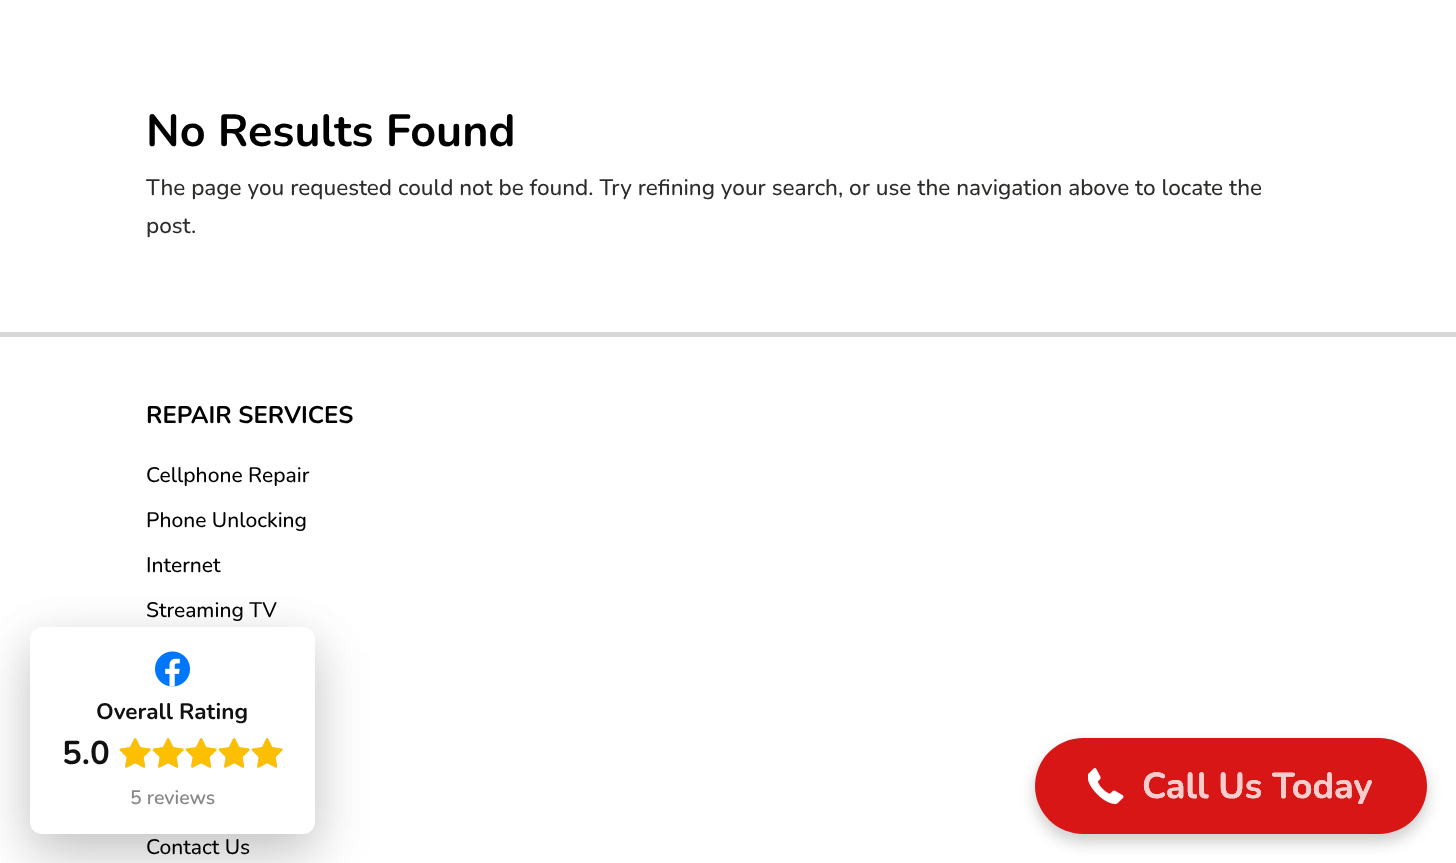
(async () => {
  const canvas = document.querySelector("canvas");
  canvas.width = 1456;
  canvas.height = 863;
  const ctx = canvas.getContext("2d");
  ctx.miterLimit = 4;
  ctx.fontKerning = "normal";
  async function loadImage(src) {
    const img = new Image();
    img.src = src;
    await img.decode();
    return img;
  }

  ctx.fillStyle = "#ffffff";
  ctx.fillRect(0, 0, 1456, 863);
  ctx.fillStyle = "#d7d7d7";
  ctx.fillRect(0, 332, 1456, 5);
  ctx.fillStyle = "rgba(0, 0, 0, 0.15)";
  ctx.filter = "blur(22.5px)";
  ctx.beginPath();
  ctx.roundRect(30, 642, 285, 207, 12);
  ctx.fill();
  ctx.filter = "none";
  ctx.fillStyle = "rgba(0, 0, 0, 0.1)";
  ctx.filter = "blur(30px)";
  ctx.beginPath();
  ctx.roundRect(30, 650, 285, 207, 12);
  ctx.fill();
  ctx.filter = "none";
  ctx.fillStyle = "#ffffff";
  ctx.beginPath();
  ctx.roundRect(30, 627, 285, 207, 12);
  ctx.fill();
  ctx.drawImage(await loadImage("img/1.png"), 155, 651, 35, 36);
  ctx.drawImage(await loadImage("img/2.png"), 119, 738, 32, 30);
  ctx.drawImage(await loadImage("img/3.png"), 119, 738, 32, 30);
  ctx.drawImage(await loadImage("img/2.png"), 152, 738, 32, 30);
  ctx.drawImage(await loadImage("img/3.png"), 152, 738, 32, 30);
  ctx.drawImage(await loadImage("img/2.png"), 185, 738, 32, 30);
  ctx.drawImage(await loadImage("img/3.png"), 185, 738, 32, 30);
  ctx.drawImage(await loadImage("img/2.png"), 218, 738, 32, 30);
  ctx.drawImage(await loadImage("img/3.png"), 218, 738, 32, 30);
  ctx.drawImage(await loadImage("img/2.png"), 251, 738, 32, 30);
  ctx.drawImage(await loadImage("img/3.png"), 251, 738, 32, 30);
  ctx.fillStyle = "rgba(0, 0, 0, 0.2)";
  ctx.filter = "blur(7.5px)";
  ctx.beginPath();
  ctx.roundRect(1035, 746, 392, 96, 48);
  ctx.fill();
  ctx.filter = "none";
  ctx.fillStyle = "#d81616";
  ctx.beginPath();
  ctx.roundRect(1035, 738, 392, 96, 48);
  ctx.fill();
  ctx.drawImage(await loadImage("img/4.png"), 1088, 768, 36, 36);
  ctx.font = "200 45px Nunito";
  ctx.fillStyle = "#000000";
  ctx.fillText("No Results Found", 146, 146);
  ctx.font = "200 22.5px 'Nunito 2'";
  ctx.fillStyle = "#2d2d2b";
  ctx.fillText("The page you requested could not be found. Try refining your search, or use the navigation above to locate the", 146, 195);
  ctx.fillText("post.", 146, 233);
  ctx.font = "200 24px Nunito";
  ctx.fillStyle = "#000000";
  ctx.fillText("REPAIR SERVICES", 146, 423);
  ctx.font = "200 21px 'Nunito 2'";
  for (const [text, x, y] of [
    ["Cellphone Repair", 146, 482],
    ["Phone Unlocking", 146, 527],
    ["Internet", 146, 572],
    ["Streaming TV", 146, 617],
    ["Contact Us", 146, 854],
  ]) {
    ctx.fillText(text, x, y);
  }
  ctx.font = "200 22.5px Nunito";
  ctx.fillStyle = "#111111";
  ctx.fillText("Overall Rating", 96, 719);
  ctx.font = "200 33px Nunito";
  ctx.fillText("5.0", 62, 764);
  ctx.font = "200 19.5px 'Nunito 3'";
  ctx.fillStyle = "#888888";
  ctx.fillText("5 reviews", 130, 804);
  ctx.save();
  ctx.beginPath();
  ctx.rect(1142, 768, 231, 36);
  ctx.clip();
  ctx.font = "200 36px Nunito";
  ctx.fillStyle = "#ffffff";
  ctx.fillText("Call Us Today", 1142, 798);
  ctx.fillStyle = "#f6cccc";
  ctx.fillText("Call Us Today", 1142, 798);
  ctx.restore();
})();
